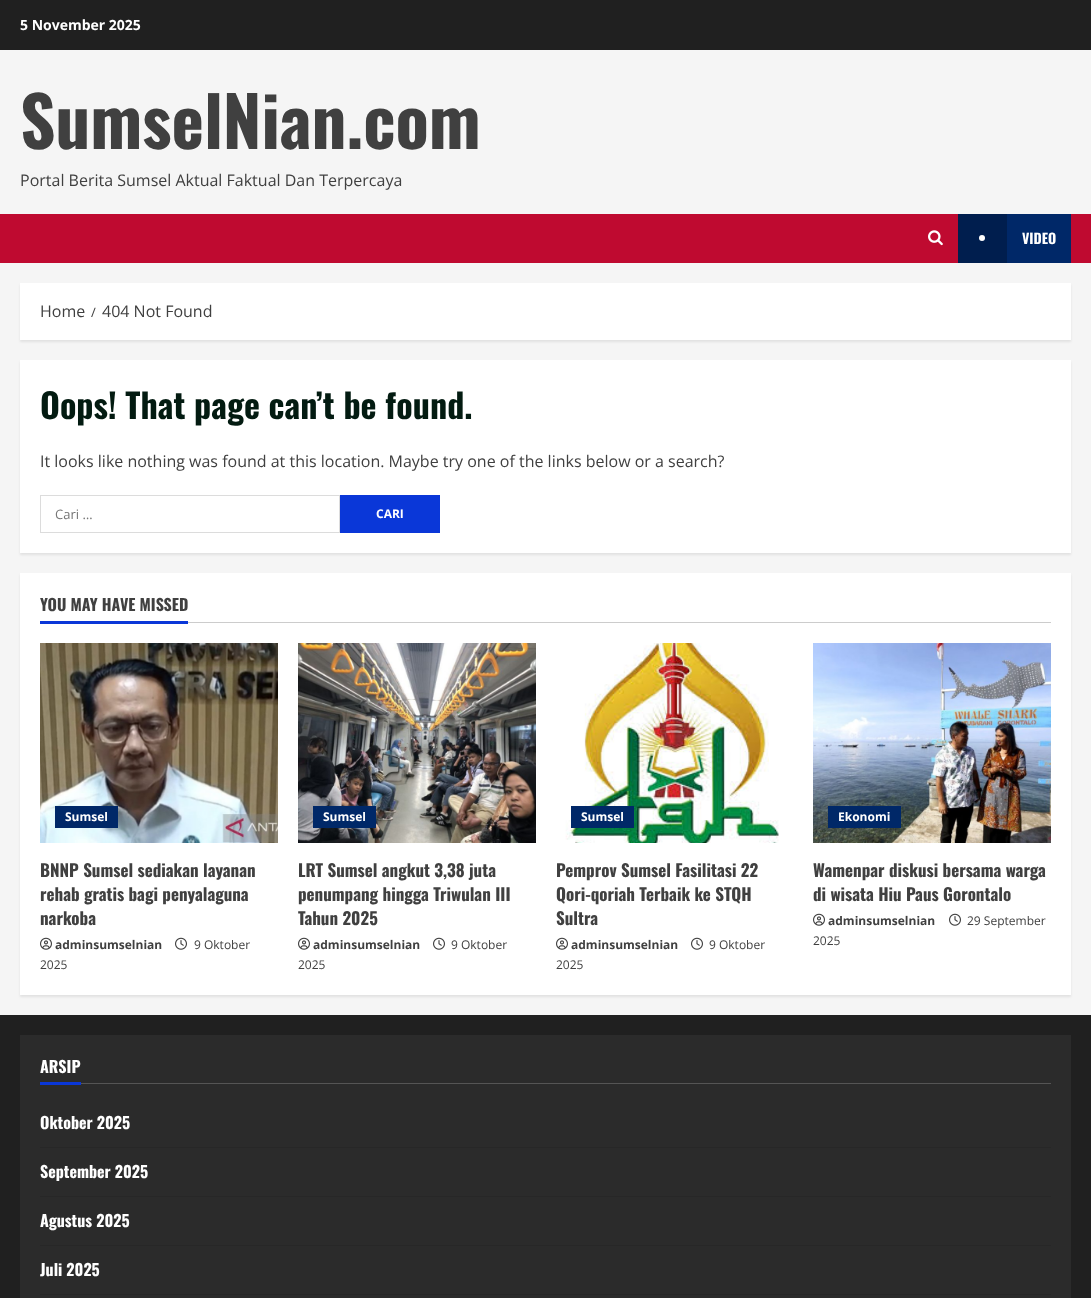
(async () => {
  const canvas = document.querySelector("canvas");
  canvas.width = 1091;
  canvas.height = 1298;
  const ctx = canvas.getContext("2d");
  ctx.miterLimit = 4;
  ctx.fontKerning = "normal";
  async function loadImage(src) {
    const img = new Image();
    img.src = src;
    await img.decode();
    return img;
  }

  ctx.fillStyle = "#f5f5f5";
  ctx.fillRect(0, 0, 1091, 1298);
  ctx.fillStyle = "#202020";
  ctx.fillRect(0, 0, 1091, 50);
  ctx.fillStyle = "#bf0a30";
  ctx.fillRect(0, 214, 1091, 49);
  ctx.drawImage(await loadImage("img/1.png"), 928, 230, 15, 16);
  ctx.fillStyle = "#002868";
  ctx.fillRect(1007, 214, 64, 49);
  ctx.fillStyle = "#001e4e";
  ctx.fillRect(958, 214, 49, 49);
  ctx.fillStyle = "#ffffff";
  ctx.beginPath();
  ctx.arc(982, 238, 3, 0, Math.PI * 2);
  ctx.fill();
  ctx.fillStyle = "rgba(0, 0, 0, 0.08)";
  ctx.filter = "blur(1px)";
  ctx.beginPath();
  ctx.rect(20, 285, 1051, 57);
  ctx.fill();
  ctx.filter = "none";
  ctx.fillStyle = "#ffffff";
  ctx.fillRect(20, 283, 1051, 57);
  ctx.fillStyle = "rgba(0, 0, 0, 0.08)";
  ctx.filter = "blur(1px)";
  ctx.beginPath();
  ctx.rect(20, 362, 1051, 193);
  ctx.fill();
  ctx.filter = "none";
  ctx.fillStyle = "#ffffff";
  ctx.fillRect(20, 360, 1051, 193);
  ctx.strokeStyle = "#dcdcdc";
  ctx.strokeRect(40.5, 495.5, 299, 37);
  ctx.fillStyle = "#0a37d8";
  ctx.fillRect(340, 495, 100, 38);
  ctx.fillStyle = "rgba(0, 0, 0, 0.08)";
  ctx.filter = "blur(1px)";
  ctx.beginPath();
  ctx.rect(20, 575, 1051, 422);
  ctx.fill();
  ctx.filter = "none";
  for (const [x, y, w, h, color] of [
    [20, 573, 1051, 422, "#ffffff"],
    [188, 622, 863, 1, "#cccccc"],
    [40, 621, 148, 3, "#0a37d8"],
  ]) {
    ctx.fillStyle = color;
    ctx.fillRect(x, y, w, h);
  }
  ctx.drawImage(await loadImage("img/2.png"), 40, 643, 238, 200);
  ctx.fillStyle = "#002868";
  ctx.fillRect(55, 806, 63, 22);
  ctx.drawImage(await loadImage("img/3.png"), 175, 937, 12, 13);
  ctx.drawImage(await loadImage("img/4.png"), 40, 937, 12, 13);
  ctx.drawImage(await loadImage("img/5.png"), 298, 643, 238, 200);
  ctx.fillRect(313, 806, 63, 22);
  ctx.drawImage(await loadImage("img/3.png"), 433, 937, 12, 13);
  ctx.drawImage(await loadImage("img/4.png"), 298, 937, 12, 13);
  ctx.drawImage(await loadImage("img/6.png"), 556, 643, 237, 200);
  ctx.fillRect(571, 806, 63, 22);
  ctx.drawImage(await loadImage("img/3.png"), 691, 937, 12, 13);
  ctx.drawImage(await loadImage("img/4.png"), 556, 937, 12, 13);
  ctx.drawImage(await loadImage("img/7.png"), 813, 643, 238, 200);
  ctx.fillRect(828, 806, 73, 22);
  ctx.drawImage(await loadImage("img/3.png"), 949, 913, 12, 13);
  ctx.drawImage(await loadImage("img/4.png"), 813, 913, 12, 13);
  for (const [x, y, w, h, color] of [
    [0, 1015, 1091, 283, "#202020"],
    [20, 1035, 1051, 263, "#2b2b2b"],
    [40, 1082, 41, 3, "#0a37d8"],
    [81, 1083, 970, 1, "#555555"],
    [40, 1147, 1011, 1, "#272727"],
    [40, 1196, 1011, 1, "#272727"],
    [40, 1245, 1011, 1, "#272727"],
    [40, 1294, 1011, 1, "#272727"],
  ]) {
    ctx.fillStyle = color;
    ctx.fillRect(x, y, w, h);
  }
  ctx.font = "bold 14px Open Sans";
  ctx.fillStyle = "#ffffff";
  ctx.fillText("5 November 2025", 20, 30);
  ctx.font = "bold 69px Oswald";
  ctx.fillStyle = "#404040";
  ctx.fillText("SumselNian.com", 20, 149);
  ctx.font = "16px Open Sans";
  ctx.fillText("Portal Berita Sumsel Aktual Faktual Dan Terpercaya", 20, 186);
  ctx.font = "bold 14px Oswald";
  ctx.fillStyle = "#ffffff";
  ctx.fillText("VIDEO", 1022, 244);
  ctx.font = "16px Open Sans";
  ctx.fillStyle = "#404040";
  ctx.fillText("Home", 40, 317);
  ctx.font = "13px Open Sans";
  ctx.fillText("/", 91, 317);
  ctx.font = "16px Open Sans";
  ctx.fillText("404 Not Found", 102, 317);
  ctx.font = "bold 34px Oswald";
  ctx.fillStyle = "#031b11";
  ctx.fillText("Oops! That page can’t be found.", 40, 419);
  ctx.font = "16px Open Sans";
  ctx.fillStyle = "#404040";
  ctx.fillText("It looks like nothing was found at this location. Maybe try one of the links below or a search?", 40, 467);
  ctx.font = "13px Open Sans";
  ctx.fillStyle = "#757575";
  ctx.fillText("Cari …", 55, 519);
  ctx.font = "bold 12px Open Sans";
  ctx.fillStyle = "#ffffff";
  ctx.fillText("CARI", 376, 518);
  ctx.font = "bold 16px Oswald";
  ctx.fillStyle = "#404040";
  ctx.fillText("YOU MAY HAVE MISSED", 40, 611);
  ctx.font = "bold 12px Open Sans";
  ctx.fillStyle = "#ffffff";
  ctx.fillText("Sumsel", 65, 821);
  ctx.font = "bold 17px Oswald";
  ctx.fillStyle = "#404040";
  for (const [text, x, y] of [
    ["BNNP Sumsel sediakan layanan", 40, 877],
    ["rehab gratis bagi penyalaguna", 40, 901],
    ["narkoba", 40, 925],
  ]) {
    ctx.fillText(text, x, y);
  }
  ctx.font = "12px Open Sans";
  ctx.fillText("9 Oktober", 194, 949);
  ctx.fillText("2025", 40, 969);
  ctx.font = "bold 12px Open Sans";
  ctx.fillText("adminsumselnian", 55, 949);
  ctx.fillStyle = "#ffffff";
  ctx.fillText("Sumsel", 323, 821);
  ctx.font = "bold 17px Oswald";
  ctx.fillStyle = "#404040";
  for (const [text, x, y] of [
    ["LRT Sumsel angkut 3,38 juta", 298, 877],
    ["penumpang hingga Triwulan III", 298, 901],
    ["Tahun 2025", 298, 925],
  ]) {
    ctx.fillText(text, x, y);
  }
  ctx.font = "12px Open Sans";
  ctx.fillText("9 Oktober", 451, 949);
  ctx.fillText("2025", 298, 969);
  ctx.font = "bold 12px Open Sans";
  ctx.fillText("adminsumselnian", 313, 949);
  ctx.fillStyle = "#ffffff";
  ctx.fillText("Sumsel", 581, 821);
  ctx.font = "bold 17px Oswald";
  ctx.fillStyle = "#404040";
  for (const [text, x, y] of [
    ["Pemprov Sumsel Fasilitasi 22", 556, 877],
    ["Qori-qoriah Terbaik ke STQH", 556, 901],
    ["Sultra", 556, 925],
  ]) {
    ctx.fillText(text, x, y);
  }
  ctx.font = "12px Open Sans";
  ctx.fillText("9 Oktober", 709, 949);
  ctx.fillText("2025", 556, 969);
  ctx.font = "bold 12px Open Sans";
  ctx.fillText("adminsumselnian", 571, 949);
  ctx.fillStyle = "#ffffff";
  ctx.fillText("Ekonomi", 838, 821);
  ctx.font = "bold 17px Oswald";
  ctx.fillStyle = "#404040";
  ctx.fillText("Wamenpar diskusi bersama warga", 813, 877);
  ctx.fillText("di wisata Hiu Paus Gorontalo", 813, 901);
  ctx.font = "12px Open Sans";
  ctx.fillText("29 September", 967, 925);
  ctx.fillText("2025", 813, 945);
  ctx.font = "bold 12px Open Sans";
  ctx.fillText("adminsumselnian", 828, 925);
  ctx.font = "bold 16px Oswald";
  ctx.fillStyle = "#ffffff";
  for (const [text, x, y] of [
    ["ARSIP", 40, 1073],
    ["Oktober 2025", 40, 1129],
    ["September 2025", 40, 1178],
    ["Agustus 2025", 40, 1227],
    ["Juli 2025", 40, 1276],
  ]) {
    ctx.fillText(text, x, y);
  }
})();
